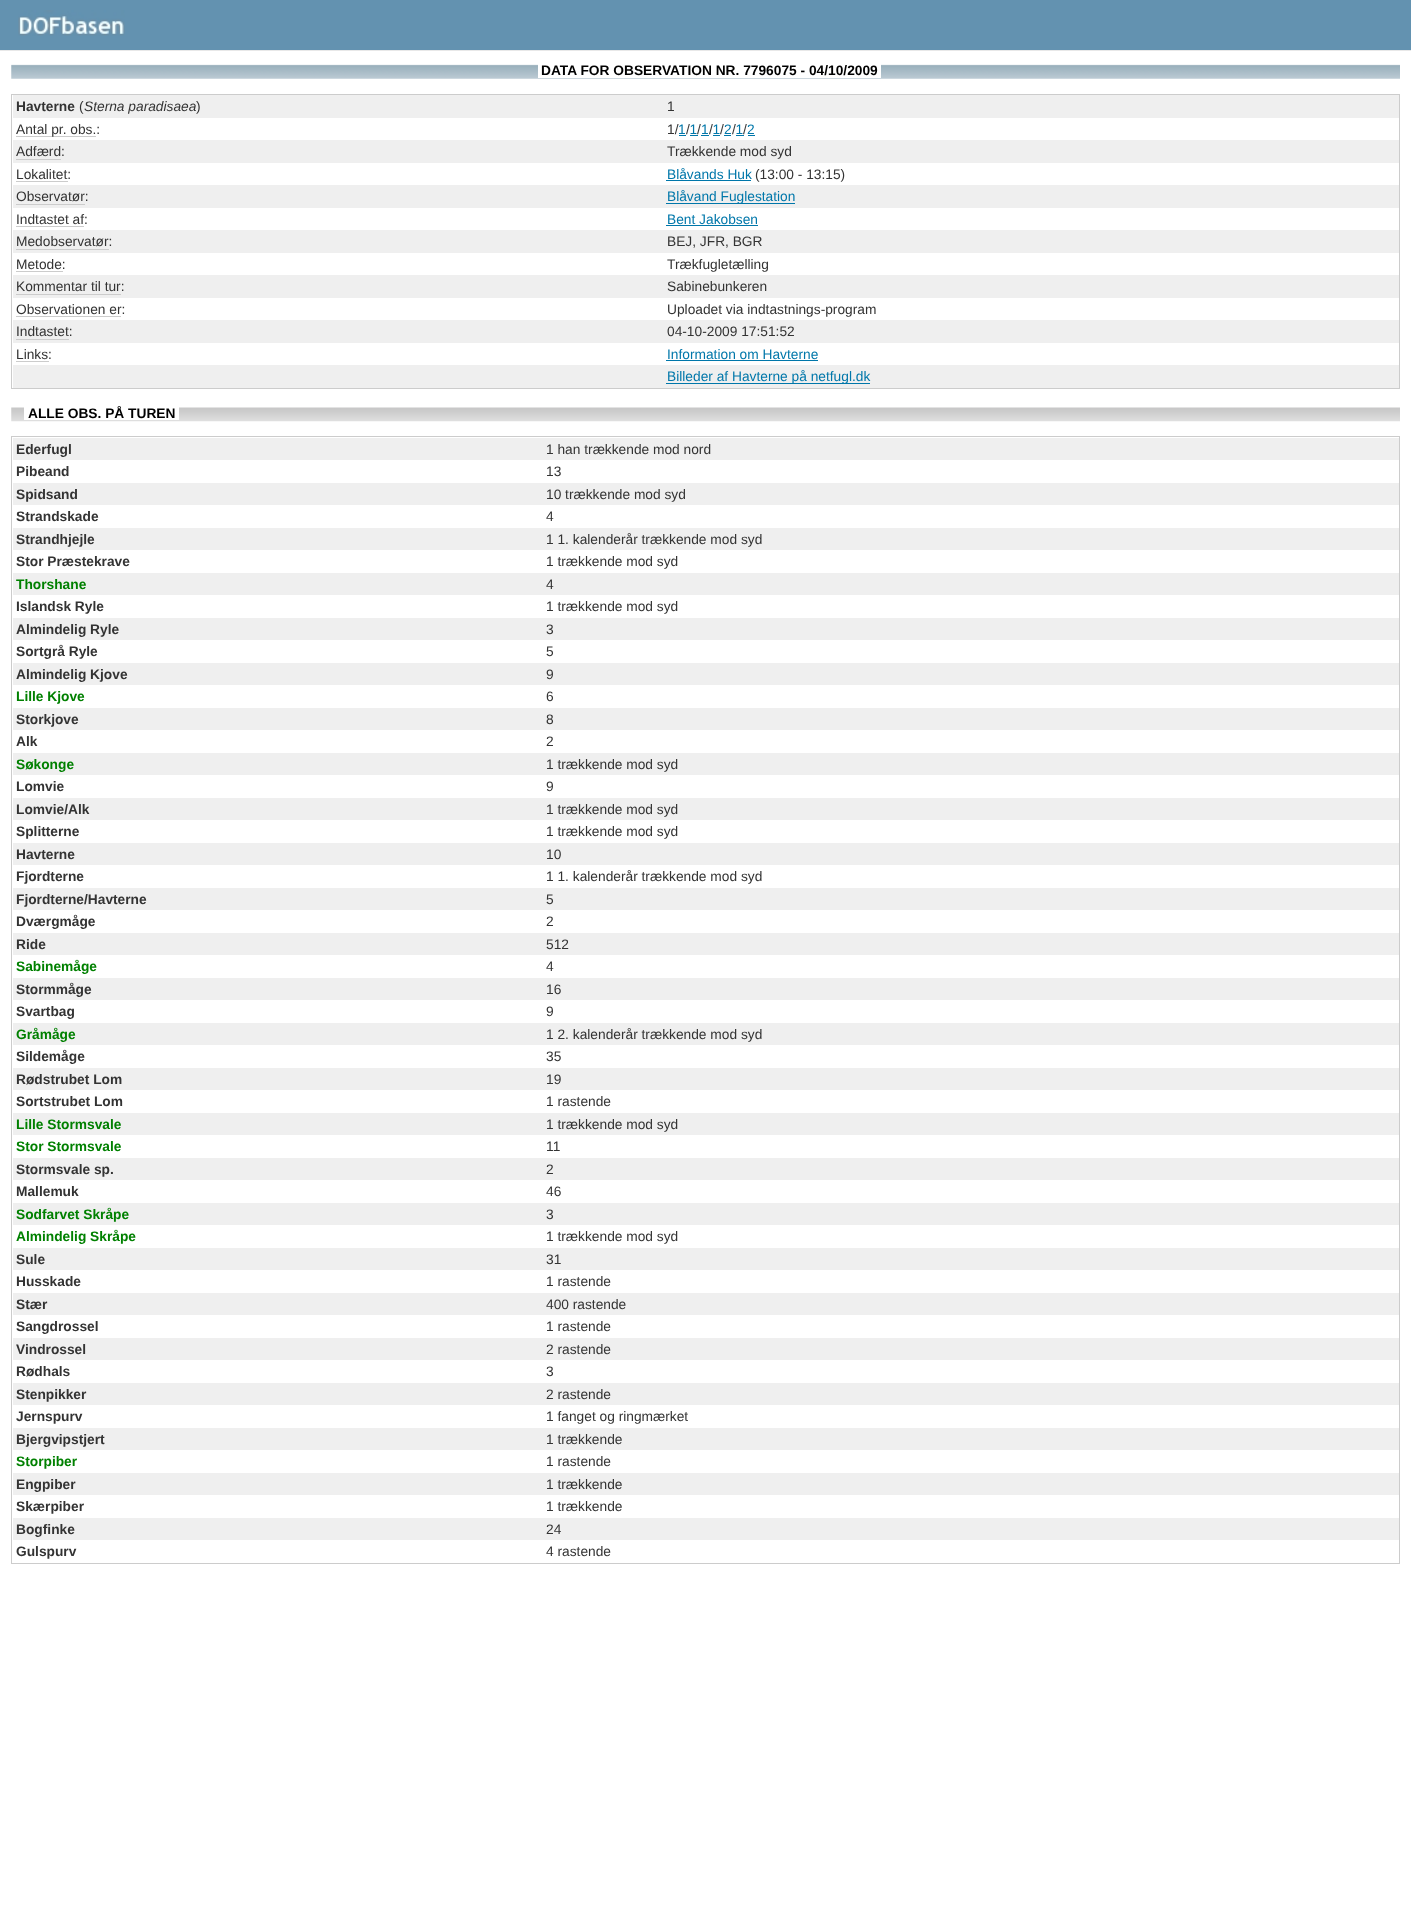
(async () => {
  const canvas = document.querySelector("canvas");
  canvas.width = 1411;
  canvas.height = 1905;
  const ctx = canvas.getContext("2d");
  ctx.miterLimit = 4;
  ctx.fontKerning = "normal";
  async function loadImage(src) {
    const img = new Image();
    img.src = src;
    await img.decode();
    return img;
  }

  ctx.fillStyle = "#ffffff";
  ctx.fillRect(0, 0, 1411, 1905);
  ctx.fillStyle = "#6392b0";
  ctx.fillRect(0, 0, 1411, 50);
  ctx.fillStyle = "#e8e8e8";
  ctx.fillRect(0, 50, 1411, 1);
  ctx.drawImage(await loadImage("img/1.png"), 18, 10, 107, 26);
  ctx.drawImage(await loadImage("img/2.png"), 11, 64, 1389, 15);
  for (const [x, y, w, h, color] of [
    [538, 64, 343, 14, "#ffffff"],
    [11, 94, 1389, 1, "#cccccc"],
    [1399, 94, 1, 295, "#cccccc"],
    [11, 388, 1389, 1, "#cccccc"],
    [11, 94, 1, 295, "#cccccc"],
    [13, 95, 1386, 23, "#efefef"],
    [16, 136, 80, 1, "#cccccc"],
    [679, 135, 7, 1, "#0077aa"],
    [724, 135, 7, 1, "#0077aa"],
    [748, 135, 7, 1, "#0077aa"],
    [690, 135, 8, 1, "#0077aa"],
    [701, 135, 8, 1, "#0077aa"],
    [713, 135, 7, 1, "#0077aa"],
    [736, 135, 8, 1, "#0077aa"],
    [13, 140, 1386, 23, "#efefef"],
    [16, 159, 45, 1, "#cccccc"],
    [16, 181, 52, 1, "#cccccc"],
    [666, 180, 85, 1, "#0077aa"],
    [13, 185, 1386, 23, "#efefef"],
    [16, 204, 69, 1, "#cccccc"],
    [666, 203, 129, 1, "#0077aa"],
    [16, 226, 68, 1, "#cccccc"],
    [666, 225, 92, 1, "#0077aa"],
    [13, 230, 1386, 23, "#efefef"],
    [16, 249, 93, 1, "#cccccc"],
    [16, 271, 47, 1, "#cccccc"],
    [13, 275, 1386, 23, "#efefef"],
    [16, 294, 105, 1, "#cccccc"],
    [16, 316, 105, 1, "#cccccc"],
    [13, 320, 1386, 23, "#efefef"],
    [16, 339, 53, 1, "#cccccc"],
    [16, 361, 33, 1, "#cccccc"],
    [666, 360, 152, 1, "#0077aa"],
    [13, 365, 1386, 23, "#efefef"],
    [666, 383, 204, 1, "#0077aa"],
  ]) {
    ctx.fillStyle = color;
    ctx.fillRect(x, y, w, h);
  }
  ctx.drawImage(await loadImage("img/3.png"), 11, 407, 1389, 15);
  for (const [x, y, w, h, color] of [
    [24, 407, 155, 13, "#ffffff"],
    [11, 436, 1389, 1, "#cccccc"],
    [1399, 436, 1, 1128, "#cccccc"],
    [11, 1563, 1389, 1, "#cccccc"],
    [11, 436, 1, 1128, "#cccccc"],
    [13, 438, 1386, 22, "#efefef"],
    [13, 483, 1386, 22, "#efefef"],
    [13, 528, 1386, 22, "#efefef"],
    [13, 573, 1386, 22, "#efefef"],
    [13, 618, 1386, 22, "#efefef"],
    [13, 663, 1386, 22, "#efefef"],
    [13, 708, 1386, 22, "#efefef"],
    [13, 753, 1386, 22, "#efefef"],
    [13, 798, 1386, 22, "#efefef"],
    [13, 843, 1386, 22, "#efefef"],
    [13, 888, 1386, 22, "#efefef"],
    [13, 933, 1386, 22, "#efefef"],
    [13, 978, 1386, 22, "#efefef"],
    [13, 1023, 1386, 22, "#efefef"],
    [13, 1068, 1386, 22, "#efefef"],
    [13, 1113, 1386, 22, "#efefef"],
    [13, 1158, 1386, 22, "#efefef"],
    [13, 1203, 1386, 22, "#efefef"],
    [13, 1248, 1386, 22, "#efefef"],
    [13, 1293, 1386, 22, "#efefef"],
    [13, 1338, 1386, 22, "#efefef"],
    [13, 1383, 1386, 22, "#efefef"],
    [13, 1428, 1386, 22, "#efefef"],
    [13, 1473, 1386, 22, "#efefef"],
    [13, 1518, 1386, 22, "#efefef"],
  ]) {
    ctx.fillStyle = color;
    ctx.fillRect(x, y, w, h);
  }
  ctx.font = "bold 13.75px Liberation Sans";
  ctx.fillStyle = "#000000";
  ctx.fillText("DATA FOR OBSERVATION NR. 7796075 - 04/10/2009", 541, 75);
  ctx.fillStyle = "#333333";
  ctx.fillText("Havterne", 16, 111);
  ctx.font = "13.75px Liberation Sans";
  ctx.fillText("(", 79, 111);
  ctx.font = "italic 13.75px Liberation Sans";
  ctx.fillText("Sterna paradisaea", 84, 111);
  ctx.font = "13.75px Liberation Sans";
  for (const [text, x, y] of [
    [")", 196, 111],
    ["1", 667, 111],
    ["Antal pr. obs.:", 16, 134],
    ["1/", 667, 134],
  ]) {
    ctx.fillText(text, x, y);
  }
  ctx.fillStyle = "#0077aa";
  ctx.fillText("1 1 1 1", 678, 134);
  ctx.fillStyle = "#333333";
  for (const [text, x, y] of [
    ["/", 686, 134],
    ["/", 697, 134],
    ["/", 709, 134],
    ["/", 720, 134],
  ]) {
    ctx.fillText(text, x, y);
  }
  ctx.fillStyle = "#0077aa";
  ctx.fillText("2 1", 724, 134);
  ctx.fillStyle = "#333333";
  ctx.fillText("/", 732, 134);
  ctx.fillText("/", 743, 134);
  ctx.fillStyle = "#0077aa";
  ctx.fillText("2", 747, 134);
  ctx.fillStyle = "#333333";
  for (const [text, x, y] of [
    ["Adfærd:", 16, 156],
    ["Trækkende mod syd", 667, 156],
    ["Lokalitet:", 16, 179],
  ]) {
    ctx.fillText(text, x, y);
  }
  ctx.fillStyle = "#0077aa";
  ctx.fillText("Blåvands Huk", 667, 179);
  ctx.fillStyle = "#333333";
  ctx.fillText("(13:00 - 13:15)", 755, 179);
  ctx.fillText("Observatør:", 16, 201);
  ctx.fillStyle = "#0077aa";
  ctx.fillText("Blåvand Fuglestation", 667, 201);
  ctx.fillStyle = "#333333";
  ctx.fillText("Indtastet af:", 16, 224);
  ctx.fillStyle = "#0077aa";
  ctx.fillText("Bent Jakobsen", 667, 224);
  ctx.fillStyle = "#333333";
  for (const [text, x, y] of [
    ["Medobservatør:", 16, 246],
    ["BEJ, JFR, BGR", 667, 246],
    ["Metode:", 16, 269],
    ["Trækfugletælling", 667, 269],
    ["Kommentar til tur:", 16, 291],
    ["Sabinebunkeren", 667, 291],
    ["Observationen er:", 16, 314],
    ["Uploadet via indtastnings-program", 667, 314],
    ["Indtastet:", 16, 336],
    ["04-10-2009 17:51:52", 667, 336],
    ["Links:", 16, 359],
  ]) {
    ctx.fillText(text, x, y);
  }
  ctx.fillStyle = "#0077aa";
  ctx.fillText("Information om Havterne", 667, 359);
  ctx.fillText("Billeder af Havterne på netfugl.dk", 667, 381);
  ctx.font = "bold 13.75px Liberation Sans";
  ctx.fillStyle = "#000000";
  ctx.fillText("ALLE OBS. PÅ TUREN", 28, 418);
  ctx.fillStyle = "#333333";
  ctx.fillText("Ederfugl", 16, 454);
  ctx.font = "13.75px Liberation Sans";
  ctx.fillText("1 han trækkende mod nord", 546, 454);
  ctx.font = "bold 13.75px Liberation Sans";
  ctx.fillText("Pibeand", 16, 476);
  ctx.font = "13.75px Liberation Sans";
  ctx.fillText("13", 546, 476);
  ctx.font = "bold 13.75px Liberation Sans";
  ctx.fillText("Spidsand", 16, 499);
  ctx.font = "13.75px Liberation Sans";
  ctx.fillText("10 trækkende mod syd", 546, 499);
  ctx.font = "bold 13.75px Liberation Sans";
  ctx.fillText("Strandskade", 16, 521);
  ctx.font = "13.75px Liberation Sans";
  ctx.fillText("4", 546, 521);
  ctx.font = "bold 13.75px Liberation Sans";
  ctx.fillText("Strandhjejle", 16, 544);
  ctx.font = "13.75px Liberation Sans";
  ctx.fillText("1 1. kalenderår trækkende mod syd", 546, 544);
  ctx.font = "bold 13.75px Liberation Sans";
  ctx.fillText("Stor Præstekrave", 16, 566);
  ctx.font = "13.75px Liberation Sans";
  ctx.fillText("1 trækkende mod syd", 546, 566);
  ctx.font = "bold 13.75px Liberation Sans";
  ctx.fillStyle = "#008000";
  ctx.fillText("Thorshane", 16, 589);
  ctx.font = "13.75px Liberation Sans";
  ctx.fillStyle = "#333333";
  ctx.fillText("4", 546, 589);
  ctx.font = "bold 13.75px Liberation Sans";
  ctx.fillText("Islandsk Ryle", 16, 611);
  ctx.font = "13.75px Liberation Sans";
  ctx.fillText("1 trækkende mod syd", 546, 611);
  ctx.font = "bold 13.75px Liberation Sans";
  ctx.fillText("Almindelig Ryle", 16, 634);
  ctx.font = "13.75px Liberation Sans";
  ctx.fillText("3", 546, 634);
  ctx.font = "bold 13.75px Liberation Sans";
  ctx.fillText("Sortgrå Ryle", 16, 656);
  ctx.font = "13.75px Liberation Sans";
  ctx.fillText("5", 546, 656);
  ctx.font = "bold 13.75px Liberation Sans";
  ctx.fillText("Almindelig Kjove", 16, 679);
  ctx.font = "13.75px Liberation Sans";
  ctx.fillText("9", 546, 679);
  ctx.font = "bold 13.75px Liberation Sans";
  ctx.fillStyle = "#008000";
  ctx.fillText("Lille Kjove", 16, 701);
  ctx.font = "13.75px Liberation Sans";
  ctx.fillStyle = "#333333";
  ctx.fillText("6", 546, 701);
  ctx.font = "bold 13.75px Liberation Sans";
  ctx.fillText("Storkjove", 16, 724);
  ctx.font = "13.75px Liberation Sans";
  ctx.fillText("8", 546, 724);
  ctx.font = "bold 13.75px Liberation Sans";
  ctx.fillText("Alk", 16, 746);
  ctx.font = "13.75px Liberation Sans";
  ctx.fillText("2", 546, 746);
  ctx.font = "bold 13.75px Liberation Sans";
  ctx.fillStyle = "#008000";
  ctx.fillText("Søkonge", 16, 769);
  ctx.font = "13.75px Liberation Sans";
  ctx.fillStyle = "#333333";
  ctx.fillText("1 trækkende mod syd", 546, 769);
  ctx.font = "bold 13.75px Liberation Sans";
  ctx.fillText("Lomvie", 16, 791);
  ctx.font = "13.75px Liberation Sans";
  ctx.fillText("9", 546, 791);
  ctx.font = "bold 13.75px Liberation Sans";
  ctx.fillText("Lomvie/Alk", 16, 814);
  ctx.font = "13.75px Liberation Sans";
  ctx.fillText("1 trækkende mod syd", 546, 814);
  ctx.font = "bold 13.75px Liberation Sans";
  ctx.fillText("Splitterne", 16, 836);
  ctx.font = "13.75px Liberation Sans";
  ctx.fillText("1 trækkende mod syd", 546, 836);
  ctx.font = "bold 13.75px Liberation Sans";
  ctx.fillText("Havterne", 16, 859);
  ctx.font = "13.75px Liberation Sans";
  ctx.fillText("10", 546, 859);
  ctx.font = "bold 13.75px Liberation Sans";
  ctx.fillText("Fjordterne", 16, 881);
  ctx.font = "13.75px Liberation Sans";
  ctx.fillText("1 1. kalenderår trækkende mod syd", 546, 881);
  ctx.font = "bold 13.75px Liberation Sans";
  ctx.fillText("Fjordterne/Havterne", 16, 904);
  ctx.font = "13.75px Liberation Sans";
  ctx.fillText("5", 546, 904);
  ctx.font = "bold 13.75px Liberation Sans";
  ctx.fillText("Dværgmåge", 16, 926);
  ctx.font = "13.75px Liberation Sans";
  ctx.fillText("2", 546, 926);
  ctx.font = "bold 13.75px Liberation Sans";
  ctx.fillText("Ride", 16, 949);
  ctx.font = "13.75px Liberation Sans";
  ctx.fillText("512", 546, 949);
  ctx.font = "bold 13.75px Liberation Sans";
  ctx.fillStyle = "#008000";
  ctx.fillText("Sabinemåge", 16, 971);
  ctx.font = "13.75px Liberation Sans";
  ctx.fillStyle = "#333333";
  ctx.fillText("4", 546, 971);
  ctx.font = "bold 13.75px Liberation Sans";
  ctx.fillText("Stormmåge", 16, 994);
  ctx.font = "13.75px Liberation Sans";
  ctx.fillText("16", 546, 994);
  ctx.font = "bold 13.75px Liberation Sans";
  ctx.fillText("Svartbag", 16, 1016);
  ctx.font = "13.75px Liberation Sans";
  ctx.fillText("9", 546, 1016);
  ctx.font = "bold 13.75px Liberation Sans";
  ctx.fillStyle = "#008000";
  ctx.fillText("Gråmåge", 16, 1039);
  ctx.font = "13.75px Liberation Sans";
  ctx.fillStyle = "#333333";
  ctx.fillText("1 2. kalenderår trækkende mod syd", 546, 1039);
  ctx.font = "bold 13.75px Liberation Sans";
  ctx.fillText("Sildemåge", 16, 1061);
  ctx.font = "13.75px Liberation Sans";
  ctx.fillText("35", 546, 1061);
  ctx.font = "bold 13.75px Liberation Sans";
  ctx.fillText("Rødstrubet Lom", 16, 1084);
  ctx.font = "13.75px Liberation Sans";
  ctx.fillText("19", 546, 1084);
  ctx.font = "bold 13.75px Liberation Sans";
  ctx.fillText("Sortstrubet Lom", 16, 1106);
  ctx.font = "13.75px Liberation Sans";
  ctx.fillText("1 rastende", 546, 1106);
  ctx.font = "bold 13.75px Liberation Sans";
  ctx.fillStyle = "#008000";
  ctx.fillText("Lille Stormsvale", 16, 1129);
  ctx.font = "13.75px Liberation Sans";
  ctx.fillStyle = "#333333";
  ctx.fillText("1 trækkende mod syd", 546, 1129);
  ctx.font = "bold 13.75px Liberation Sans";
  ctx.fillStyle = "#008000";
  ctx.fillText("Stor Stormsvale", 16, 1151);
  ctx.font = "13.75px Liberation Sans";
  ctx.fillStyle = "#333333";
  ctx.fillText("11", 546, 1151);
  ctx.font = "bold 13.75px Liberation Sans";
  ctx.fillText("Stormsvale sp.", 16, 1174);
  ctx.font = "13.75px Liberation Sans";
  ctx.fillText("2", 546, 1174);
  ctx.font = "bold 13.75px Liberation Sans";
  ctx.fillText("Mallemuk", 16, 1196);
  ctx.font = "13.75px Liberation Sans";
  ctx.fillText("46", 546, 1196);
  ctx.font = "bold 13.75px Liberation Sans";
  ctx.fillStyle = "#008000";
  ctx.fillText("Sodfarvet Skråpe", 16, 1219);
  ctx.font = "13.75px Liberation Sans";
  ctx.fillStyle = "#333333";
  ctx.fillText("3", 546, 1219);
  ctx.font = "bold 13.75px Liberation Sans";
  ctx.fillStyle = "#008000";
  ctx.fillText("Almindelig Skråpe", 16, 1241);
  ctx.font = "13.75px Liberation Sans";
  ctx.fillStyle = "#333333";
  ctx.fillText("1 trækkende mod syd", 546, 1241);
  ctx.font = "bold 13.75px Liberation Sans";
  ctx.fillText("Sule", 16, 1264);
  ctx.font = "13.75px Liberation Sans";
  ctx.fillText("31", 546, 1264);
  ctx.font = "bold 13.75px Liberation Sans";
  ctx.fillText("Husskade", 16, 1286);
  ctx.font = "13.75px Liberation Sans";
  ctx.fillText("1 rastende", 546, 1286);
  ctx.font = "bold 13.75px Liberation Sans";
  ctx.fillText("Stær", 16, 1309);
  ctx.font = "13.75px Liberation Sans";
  ctx.fillText("400 rastende", 546, 1309);
  ctx.font = "bold 13.75px Liberation Sans";
  ctx.fillText("Sangdrossel", 16, 1331);
  ctx.font = "13.75px Liberation Sans";
  ctx.fillText("1 rastende", 546, 1331);
  ctx.font = "bold 13.75px Liberation Sans";
  ctx.fillText("Vindrossel", 16, 1354);
  ctx.font = "13.75px Liberation Sans";
  ctx.fillText("2 rastende", 546, 1354);
  ctx.font = "bold 13.75px Liberation Sans";
  ctx.fillText("Rødhals", 16, 1376);
  ctx.font = "13.75px Liberation Sans";
  ctx.fillText("3", 546, 1376);
  ctx.font = "bold 13.75px Liberation Sans";
  ctx.fillText("Stenpikker", 16, 1399);
  ctx.font = "13.75px Liberation Sans";
  ctx.fillText("2 rastende", 546, 1399);
  ctx.font = "bold 13.75px Liberation Sans";
  ctx.fillText("Jernspurv", 16, 1421);
  ctx.font = "13.75px Liberation Sans";
  ctx.fillText("1 fanget og ringmærket", 546, 1421);
  ctx.font = "bold 13.75px Liberation Sans";
  ctx.fillText("Bjergvipstjert", 16, 1444);
  ctx.font = "13.75px Liberation Sans";
  ctx.fillText("1 trækkende", 546, 1444);
  ctx.font = "bold 13.75px Liberation Sans";
  ctx.fillStyle = "#008000";
  ctx.fillText("Storpiber", 16, 1466);
  ctx.font = "13.75px Liberation Sans";
  ctx.fillStyle = "#333333";
  ctx.fillText("1 rastende", 546, 1466);
  ctx.font = "bold 13.75px Liberation Sans";
  ctx.fillText("Engpiber", 16, 1489);
  ctx.font = "13.75px Liberation Sans";
  ctx.fillText("1 trækkende", 546, 1489);
  ctx.font = "bold 13.75px Liberation Sans";
  ctx.fillText("Skærpiber", 16, 1511);
  ctx.font = "13.75px Liberation Sans";
  ctx.fillText("1 trækkende", 546, 1511);
  ctx.font = "bold 13.75px Liberation Sans";
  ctx.fillText("Bogfinke", 16, 1534);
  ctx.font = "13.75px Liberation Sans";
  ctx.fillText("24", 546, 1534);
  ctx.font = "bold 13.75px Liberation Sans";
  ctx.fillText("Gulspurv", 16, 1556);
  ctx.font = "13.75px Liberation Sans";
  ctx.fillText("4 rastende", 546, 1556);
})();
